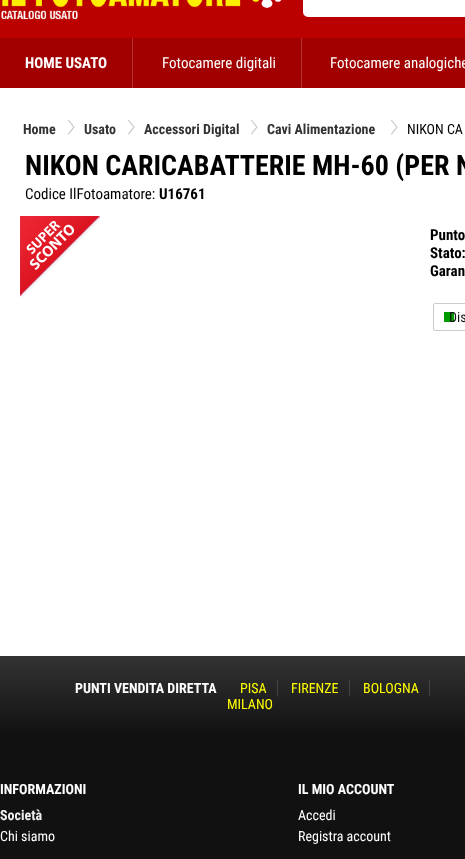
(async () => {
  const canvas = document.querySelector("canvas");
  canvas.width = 465;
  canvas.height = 859;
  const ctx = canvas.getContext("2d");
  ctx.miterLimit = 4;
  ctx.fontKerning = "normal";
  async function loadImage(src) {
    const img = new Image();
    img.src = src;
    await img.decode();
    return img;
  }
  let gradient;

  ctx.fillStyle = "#ffffff";
  ctx.fillRect(0, 0, 465, 859);
  ctx.fillStyle = "#bb0000";
  ctx.fillRect(0, 0, 465, 38);
  ctx.drawImage(await loadImage("img/1.png"), 1, 0, 281, 20);
  ctx.fillStyle = "#ffffff";
  ctx.beginPath();
  ctx.roundRect(305, -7, 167, 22, 3);
  ctx.fill();
  ctx.strokeStyle = "#ffffff";
  ctx.lineWidth = 4;
  ctx.stroke();
  for (const [x, y, w, h, color] of [
    [0, 38, 465, 50, "#a20000"],
    [132, 38, 1, 50, "#b53333"],
    [301, 38, 1, 50, "#b53333"],
  ]) {
    ctx.fillStyle = color;
    ctx.fillRect(x, y, w, h);
  }
  ctx.drawImage(await loadImage("img/2.png"), 67, 119, 8, 16);
  ctx.drawImage(await loadImage("img/2.png"), 127, 119, 8, 16);
  ctx.drawImage(await loadImage("img/2.png"), 250, 119, 8, 16);
  ctx.drawImage(await loadImage("img/2.png"), 390, 119, 8, 16);
  ctx.drawImage(await loadImage("img/3.png"), 20, 216, 80, 81);
  ctx.fillStyle = "#039a00";
  ctx.fillRect(444, 312, 10, 10);
  ctx.beginPath();
  ctx.roundRect(433.5, 303.5, 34, 27, 1.5);
  ctx.strokeStyle = "#cccccc";
  ctx.lineWidth = 1;
  ctx.stroke();
  gradient = ctx.createLinearGradient(0, 656, 0, 736);
  gradient.addColorStop(0, "#333333");
  gradient.addColorStop(1, "#111111");
  ctx.fillStyle = gradient;
  ctx.fillRect(0, 656, 465, 80);
  for (const [x, y, w, h, color] of [
    [277, 680, 1, 16, "#444444"],
    [349, 680, 1, 16, "#444444"],
    [429, 680, 1, 16, "#444444"],
    [0, 736, 465, 123, "#111111"],
  ]) {
    ctx.fillStyle = color;
    ctx.fillRect(x, y, w, h);
  }
  ctx.font = "bold 15px Roboto Condensed";
  ctx.fillStyle = "#ffffff";
  ctx.fillText("HOME USATO", 25, 68);
  ctx.font = "15px Roboto Condensed";
  ctx.fillText("Fotocamere digitali", 162, 68);
  ctx.fillText("Fotocamere analogiche", 330, 68);
  ctx.font = "bold 14px Roboto Condensed";
  ctx.fillStyle = "#333333";
  for (const [text, x, y] of [
    ["Home", 23, 134],
    ["Usato", 84, 134],
    ["Accessori Digital", 144, 134],
    ["Cavi Alimentazione", 267, 134],
  ]) {
    ctx.fillText(text, x, y);
  }
  ctx.font = "14px Roboto Condensed";
  ctx.fillStyle = "#000000";
  ctx.fillText("NIKON CA", 407, 134);
  ctx.font = "bold 28px Roboto Condensed";
  ctx.fillText("NIKON CARICABATTERIE MH-60 (PER N", 25, 175);
  ctx.font = "15px Roboto Condensed";
  ctx.fillText("Codice IlFotoamatore:", 25, 199);
  ctx.font = "bold 15px Roboto Condensed";
  for (const [text, x, y] of [
    ["U16761", 159, 199],
    ["Punto", 430, 240],
    ["Stato:", 430, 258],
    ["Garan", 430, 276],
  ]) {
    ctx.fillText(text, x, y);
  }
  ctx.font = "14px Roboto Condensed";
  ctx.fillStyle = "#111111";
  ctx.fillText("Dis", 449, 322);
  ctx.font = "bold 14px Roboto Condensed";
  ctx.fillStyle = "#ffffff";
  ctx.fillText("PUNTI VENDITA DIRETTA", 75, 693);
  ctx.font = "14px Roboto Condensed";
  ctx.fillStyle = "#ffff00";
  for (const [text, x, y] of [
    ["PISA", 240, 693],
    ["FIRENZE", 291, 693],
    ["BOLOGNA", 363, 693],
    ["MILANO", 227, 709],
  ]) {
    ctx.fillText(text, x, y);
  }
  ctx.font = "bold 14px Roboto Condensed";
  ctx.fillStyle = "#ffffff";
  ctx.fillText("INFORMAZIONI", 0, 794);
  ctx.fillStyle = "#eeeeee";
  ctx.fillText("Società", 0, 820);
  ctx.font = "14px Roboto Condensed";
  ctx.fillStyle = "#ffffff";
  ctx.fillText("Chi siamo", 0, 841);
  ctx.font = "bold 14px Roboto Condensed";
  ctx.fillText("IL MIO ACCOUNT", 298, 794);
  ctx.font = "14px Roboto Condensed";
  ctx.fillText("Accedi", 298, 820);
  ctx.fillText("Registra account", 298, 841);
})();
